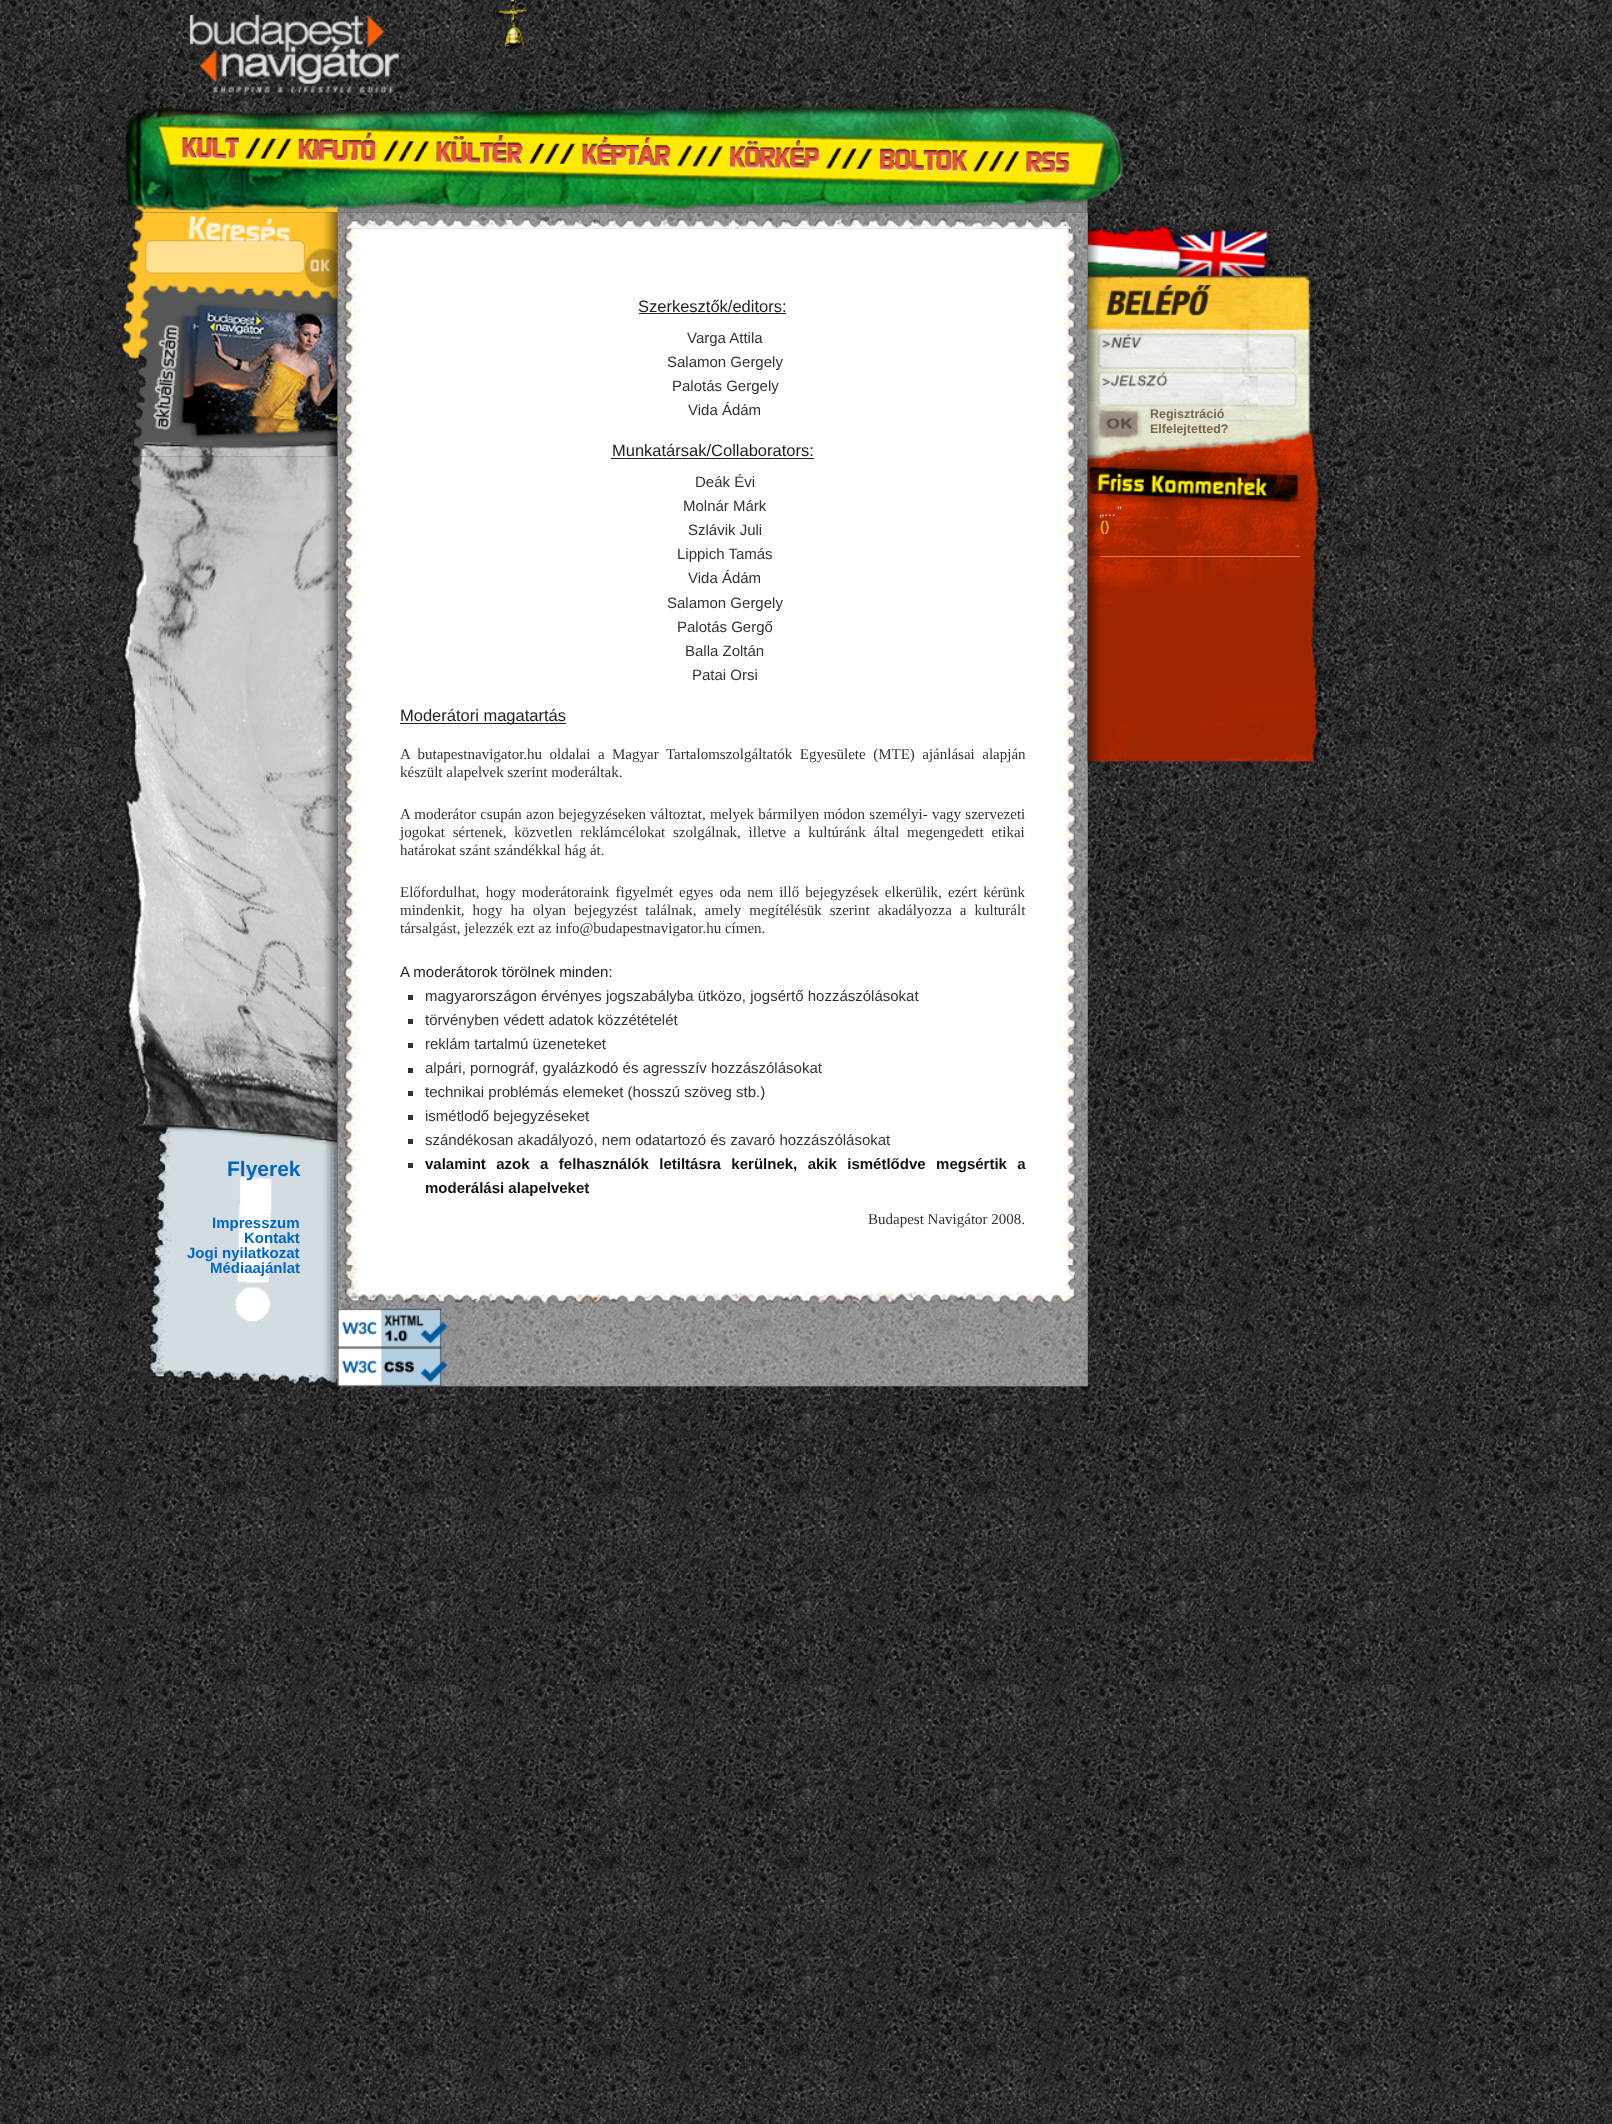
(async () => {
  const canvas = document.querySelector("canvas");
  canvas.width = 1612;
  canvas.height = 2124;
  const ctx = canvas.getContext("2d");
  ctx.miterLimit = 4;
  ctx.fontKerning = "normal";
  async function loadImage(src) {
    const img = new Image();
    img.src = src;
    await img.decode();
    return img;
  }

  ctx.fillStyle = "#ffffff";
  ctx.fillRect(0, 0, 1612, 2124);
  ctx.drawImage(await loadImage("img/1.png"), 0, 0, 1612, 2124);
  ctx.drawImage(await loadImage("img/2.png"), 189, 14, 210, 79);
  ctx.drawImage(await loadImage("img/3.png"), 498, 0, 29, 49);
  ctx.drawImage(await loadImage("img/11.png"), 125, 106, 998, 107);
  ctx.drawImage(await loadImage("img/4.png"), 182, 137, 87, 24);
  ctx.drawImage(await loadImage("img/5.png"), 268, 131, 139, 32);
  ctx.drawImage(await loadImage("img/6.png"), 406, 134, 151, 32);
  ctx.drawImage(await loadImage("img/7.png"), 556, 136, 151, 32);
  ctx.drawImage(await loadImage("img/8.png"), 706, 139, 151, 32);
  ctx.drawImage(await loadImage("img/9.png"), 856, 148, 151, 25);
  ctx.drawImage(await loadImage("img/10.png"), 1006, 151, 63, 23);
  ctx.drawImage(await loadImage("img/18.png"), 1087, 212, 187, 65);
  ctx.fillStyle = "#666666";
  ctx.fillRect(1087, 213, 1, 1173);
  ctx.drawImage(await loadImage("img/21.png"), 126, 212, 212, 88);
  ctx.drawImage(await loadImage("img/22.png"), 122, 300, 216, 157);
  ctx.drawImage(await loadImage("img/23.png"), 118, 456, 220, 694);
  ctx.drawImage(await loadImage("img/24.png"), 147, 1150, 191, 238);
  ctx.drawImage(await loadImage("img/12.png"), 337, 212, 751, 1175);
  ctx.drawImage(await loadImage("img/13.png"), 345, 215, 729, 14);
  ctx.drawImage(await loadImage("img/14.png"), 342, 228, 738, 1037);
  for (const [x, y, w, h, color] of [
    [639, 313, 147, 1, "#222222"],
    [611, 458, 203, 1, "#222222"],
    [400, 723, 166, 1, "#222222"],
    [408, 995, 5, 5, "#333333"],
    [408, 1019, 5, 5, "#333333"],
    [408, 1043, 5, 5, "#333333"],
    [408, 1068, 5, 5, "#333333"],
    [408, 1091, 5, 5, "#333333"],
    [408, 1115, 5, 5, "#333333"],
    [408, 1139, 5, 5, "#333333"],
    [408, 1163, 5, 5, "#333333"],
  ]) {
    ctx.fillStyle = color;
    ctx.fillRect(x, y, w, h);
  }
  ctx.drawImage(await loadImage("img/15.png"), 343, 1265, 735, 42);
  ctx.drawImage(await loadImage("img/16.png"), 337, 1308, 111, 40);
  ctx.drawImage(await loadImage("img/17.png"), 337, 1347, 111, 40);
  ctx.drawImage(await loadImage("img/19.png"), 1088, 276, 230, 184);
  ctx.drawImage(await loadImage("img/20.png"), 1087, 460, 236, 302);
  ctx.fillStyle = "#e37d4f";
  ctx.fillRect(1100, 556, 200, 1);
  ctx.font = "16.5px Liberation Sans";
  ctx.fillStyle = "#222222";
  ctx.fillText("Szerkesztők/editors:", 638, 312);
  ctx.font = "15px Liberation Sans";
  ctx.fillStyle = "#333333";
  for (const [text, x, y] of [
    ["Varga Attila", 687, 343],
    ["Salamon Gergely", 667, 367],
    ["Palotás Gergely", 672, 391],
    ["Vida Ádám", 688, 415],
  ]) {
    ctx.fillText(text, x, y);
  }
  ctx.font = "16.5px Liberation Sans";
  ctx.fillStyle = "#222222";
  ctx.fillText("Munkatársak/Collaborators:", 612, 456);
  ctx.font = "15px Liberation Sans";
  ctx.fillStyle = "#333333";
  for (const [text, x, y] of [
    ["Deák Évi", 695, 487],
    ["Molnár Márk", 683, 511],
    ["Szlávik Juli", 688, 535],
    ["Lippich Tamás", 677, 559],
    ["Vida Ádám", 688, 583],
    ["Salamon Gergely", 667, 608],
    ["Palotás Gergő", 677, 632],
    ["Balla Zoltán", 685, 656],
    ["Patai Orsi", 692, 680],
  ]) {
    ctx.fillText(text, x, y);
  }
  ctx.font = "16.5px Liberation Sans";
  ctx.fillStyle = "#222222";
  ctx.fillText("Moderátori magatartás", 400, 721);
  ctx.wordSpacing = "3.75px";
  ctx.font = "15px Liberation Serif";
  ctx.fillStyle = "#333333";
  ctx.fillText("A butapestnavigator.hu oldalai a Magyar Tartalomszolgáltatók Egyesülete (MTE) ajánlásai alapján", 400, 759);
  ctx.wordSpacing = "0px";
  ctx.fillText("készült alapelvek szerint moderáltak.", 400, 777);
  ctx.wordSpacing = "0.5px";
  ctx.fillText("A moderátor csupán azon bejegyzéseken változtat, melyek bármilyen módon személyi- vagy szervezeti", 400, 819);
  ctx.wordSpacing = "4px";
  ctx.fillText("jogokat sértenek, közvetlen reklámcélokat szolgálnak, illetve a kultúránk által megengedett etikai", 400, 837);
  ctx.wordSpacing = "0px";
  ctx.fillText("határokat szánt szándékkal hág át.", 400, 855);
  ctx.wordSpacing = "2.4px";
  ctx.fillText("Előfordulhat, hogy moderátoraink figyelmét egyes oda nem illő bejegyzések elkerülik, ezért kérünk", 400, 897);
  ctx.wordSpacing = "4.25px";
  ctx.fillText("mindenkit, hogy ha olyan bejegyzést találnak, amely megítélésük szerint akadályozza a kulturált", 400, 915);
  ctx.wordSpacing = "0px";
  ctx.fillText("társalgást, jelezzék ezt az info@budapestnavigator.hu címen.", 400, 933);
  ctx.font = "15px Liberation Sans";
  ctx.fillStyle = "#222222";
  ctx.fillText("A moderátorok törölnek minden:", 400, 977);
  ctx.fillStyle = "#333333";
  for (const [text, x, y] of [
    ["magyarországon érvényes jogszabályba ütközo, jogsértő hozzászólásokat", 425, 1001],
    ["törvényben védett adatok közzétételét", 425, 1025],
    ["reklám tartalmú üzeneteket", 425, 1049],
    ["alpári, pornográf, gyalázkodó és agresszív hozzászólásokat", 425, 1073],
    ["technikai problémás elemeket (hosszú szöveg stb.)", 425, 1097],
    ["ismétlodő bejegyzéseket", 425, 1121],
    ["szándékosan akadályozó, nem odatartozó és zavaró hozzászólásokat", 425, 1145],
  ]) {
    ctx.fillText(text, x, y);
  }
  ctx.wordSpacing = "6.25px";
  ctx.font = "bold 15px Liberation Sans";
  ctx.fillStyle = "#111111";
  ctx.fillText("valamint azok a felhasználók letiltásra kerülnek, akik ismétlődve megsértik a", 425, 1169);
  ctx.wordSpacing = "0px";
  ctx.fillText("moderálási alapelveket", 425, 1193);
  ctx.font = "15px Liberation Serif";
  ctx.fillStyle = "#333333";
  ctx.fillText("Budapest Navigátor 2008.", 868, 1224);
  ctx.font = "bold 12.5px Liberation Sans";
  ctx.fillStyle = "#76654d";
  ctx.fillText("Regisztráció", 1150, 418);
  ctx.fillText("Elfelejtetted?", 1150, 433);
  ctx.font = "italic 14px Liberation Sans";
  ctx.fillStyle = "#edcac7";
  ctx.fillText("„...”", 1100, 516);
  ctx.font = "bold 14px Liberation Sans";
  ctx.fillStyle = "#e3a424";
  ctx.fillText("()", 1100, 531);
  ctx.font = "11px Liberation Sans";
  ctx.fillStyle = "#e37d4f";
  ctx.fillText("-", 1296, 549);
  ctx.font = "bold 21px Liberation Sans";
  ctx.fillStyle = "#0066c5";
  ctx.fillText("Flyerek", 227, 1176);
  ctx.font = "bold 15px Liberation Sans";
  for (const [text, x, y] of [
    ["Impresszum", 212, 1228],
    ["Kontakt", 244, 1243],
    ["Jogi nyilatkozat", 187, 1258],
    ["Médiaajánlat", 210, 1273],
  ]) {
    ctx.fillText(text, x, y);
  }
})();
